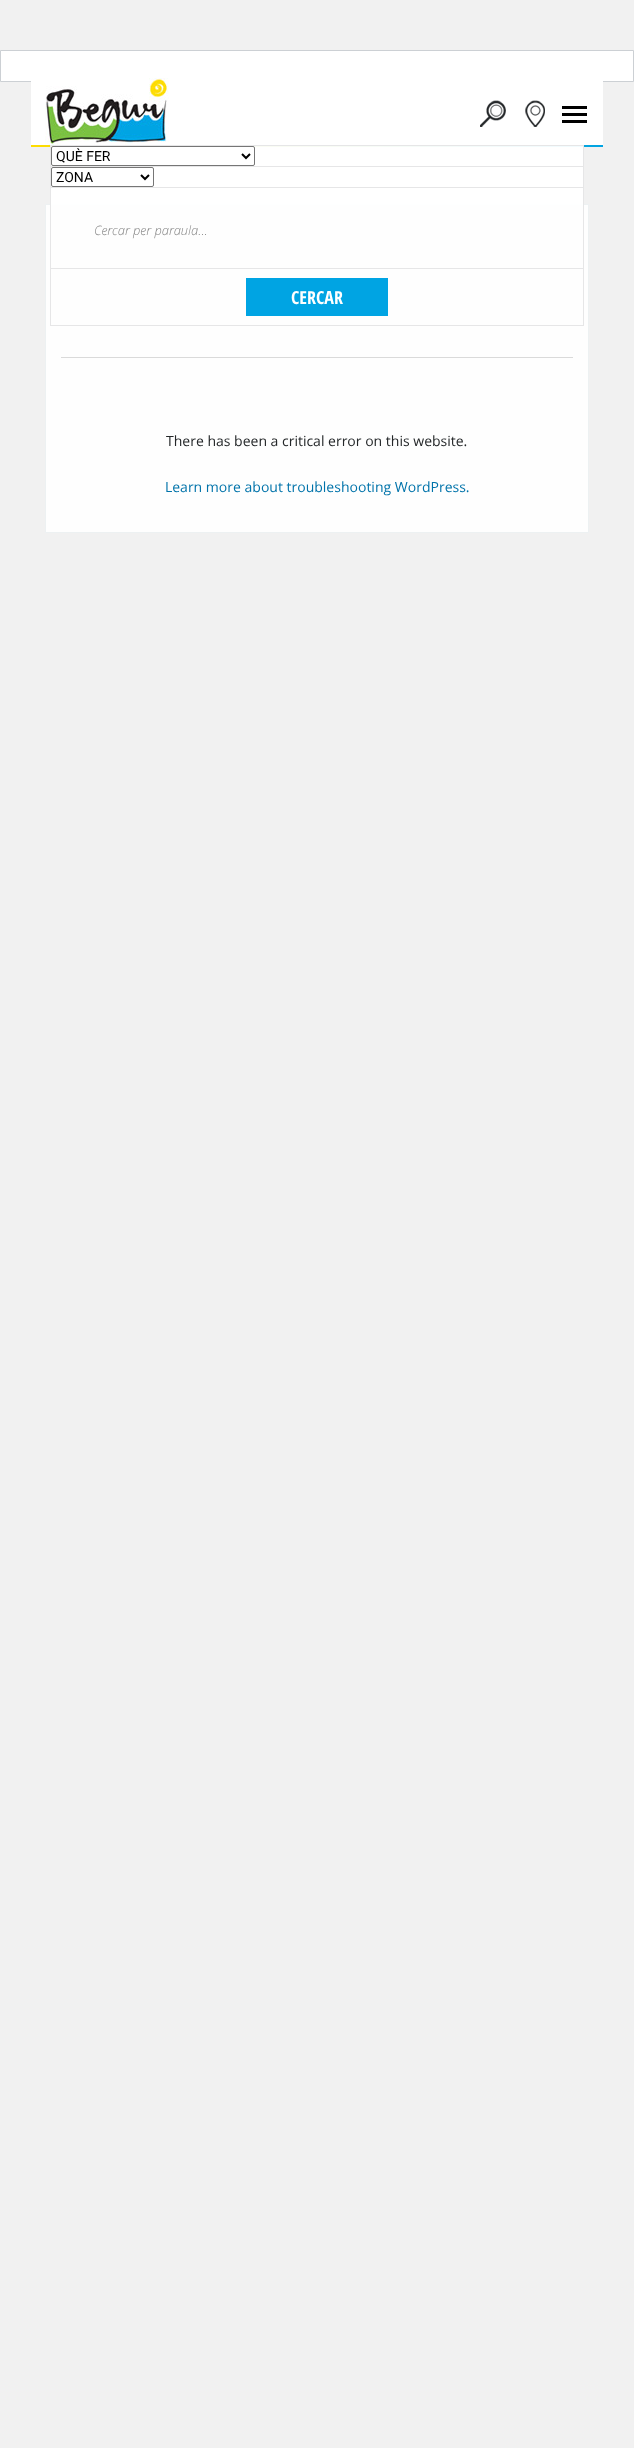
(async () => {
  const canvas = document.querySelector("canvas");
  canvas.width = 634;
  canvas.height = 2448;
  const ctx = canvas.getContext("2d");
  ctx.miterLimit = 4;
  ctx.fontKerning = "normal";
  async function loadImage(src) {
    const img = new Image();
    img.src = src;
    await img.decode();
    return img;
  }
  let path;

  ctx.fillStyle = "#f1f1f1";
  ctx.fillRect(0, 0, 634, 2448);
  ctx.fillStyle = "#ffffff";
  ctx.beginPath();
  ctx.rect(0.5, 50.5, 633, 31);
  ctx.fill();
  ctx.strokeStyle = "#ccd0d4";
  ctx.stroke();
  ctx.fillRect(31, 81, 572, 64);
  ctx.drawImage(await loadImage("img/1.png"), 45, 78, 124, 67);
  ctx.drawImage(await loadImage("img/2.png"), 525, 100, 20, 27);
  for (const [x, y, w, h, color] of [
    [562, 106, 25, 3, "#000000"],
    [562, 113, 25, 3, "#000000"],
    [562, 120, 25, 3, "#000000"],
  ]) {
    ctx.fillStyle = color;
    ctx.fillRect(x, y, w, h);
  }
  ctx.drawImage(await loadImage("img/3.png"), 480, 100, 26, 27);
  ctx.drawImage(await loadImage("img/4.png"), 31, 145, 572, 2);
  ctx.fillStyle = "#fefefe";
  ctx.beginPath();
  ctx.rect(45.5, 204.5, 543, 328);
  ctx.fill();
  ctx.strokeStyle = "#edf1f2";
  ctx.stroke();
  ctx.fillStyle = "rgba(255, 255, 255, 0.95)";
  ctx.fillRect(51, 146, 532, 59);
  ctx.strokeStyle = "#e6e6e7";
  ctx.strokeRect(50.5, 145.5, 533, 180);
  ctx.fillStyle = "#e6e6e7";
  ctx.fillRect(51, 166, 532, 1);
  ctx.fillStyle = "#ffffff";
  ctx.beginPath();
  ctx.roundRect(51.5, 146.5, 203, 19, 1.5);
  ctx.fill();
  ctx.strokeStyle = "#767676";
  ctx.stroke();
  path = new Path2D("M242 154L246 158L250 154");
  ctx.strokeStyle = "#000000";
  ctx.lineWidth = 2;
  ctx.stroke(path);
  ctx.fillStyle = "#e6e6e7";
  ctx.fillRect(51, 187, 532, 1);
  ctx.beginPath();
  ctx.roundRect(51.5, 167.5, 102, 19, 1.5);
  ctx.strokeStyle = "#767676";
  ctx.lineWidth = 1;
  ctx.stroke();
  path = new Path2D("M141 175L145 179L149 175");
  ctx.strokeStyle = "#000000";
  ctx.lineWidth = 2;
  ctx.stroke(path);
  for (const [x, y, w, h, color] of [
    [51, 268, 532, 1, "#e6e6e7"],
    [246, 278, 142, 38, "#00a4e3"],
    [61, 357, 512, 1, "#dadada"],
  ]) {
    ctx.fillStyle = color;
    ctx.fillRect(x, y, w, h);
  }
  ctx.font = "14px Roboto";
  ctx.fillStyle = "#000000";
  ctx.fillText("QUÈ FER", 56, 161);
  ctx.fillText("ZONA", 56, 182);
  ctx.font = "italic 300 13px Open Sans";
  ctx.fillStyle = "#858585";
  ctx.fillText("Cercar per paraula...", 94, 235);
  ctx.font = "bold 18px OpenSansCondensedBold";
  ctx.fillStyle = "#ffffff";
  ctx.fillText("CERCAR", 291, 304);
  ctx.font = "14px Open Sans";
  ctx.fillStyle = "#242729";
  ctx.fillText("There has been a critical error on this website.", 166, 446);
  ctx.fillStyle = "#0073aa";
  ctx.fillText("Learn more about troubleshooting WordPress.", 165, 492);
})();
